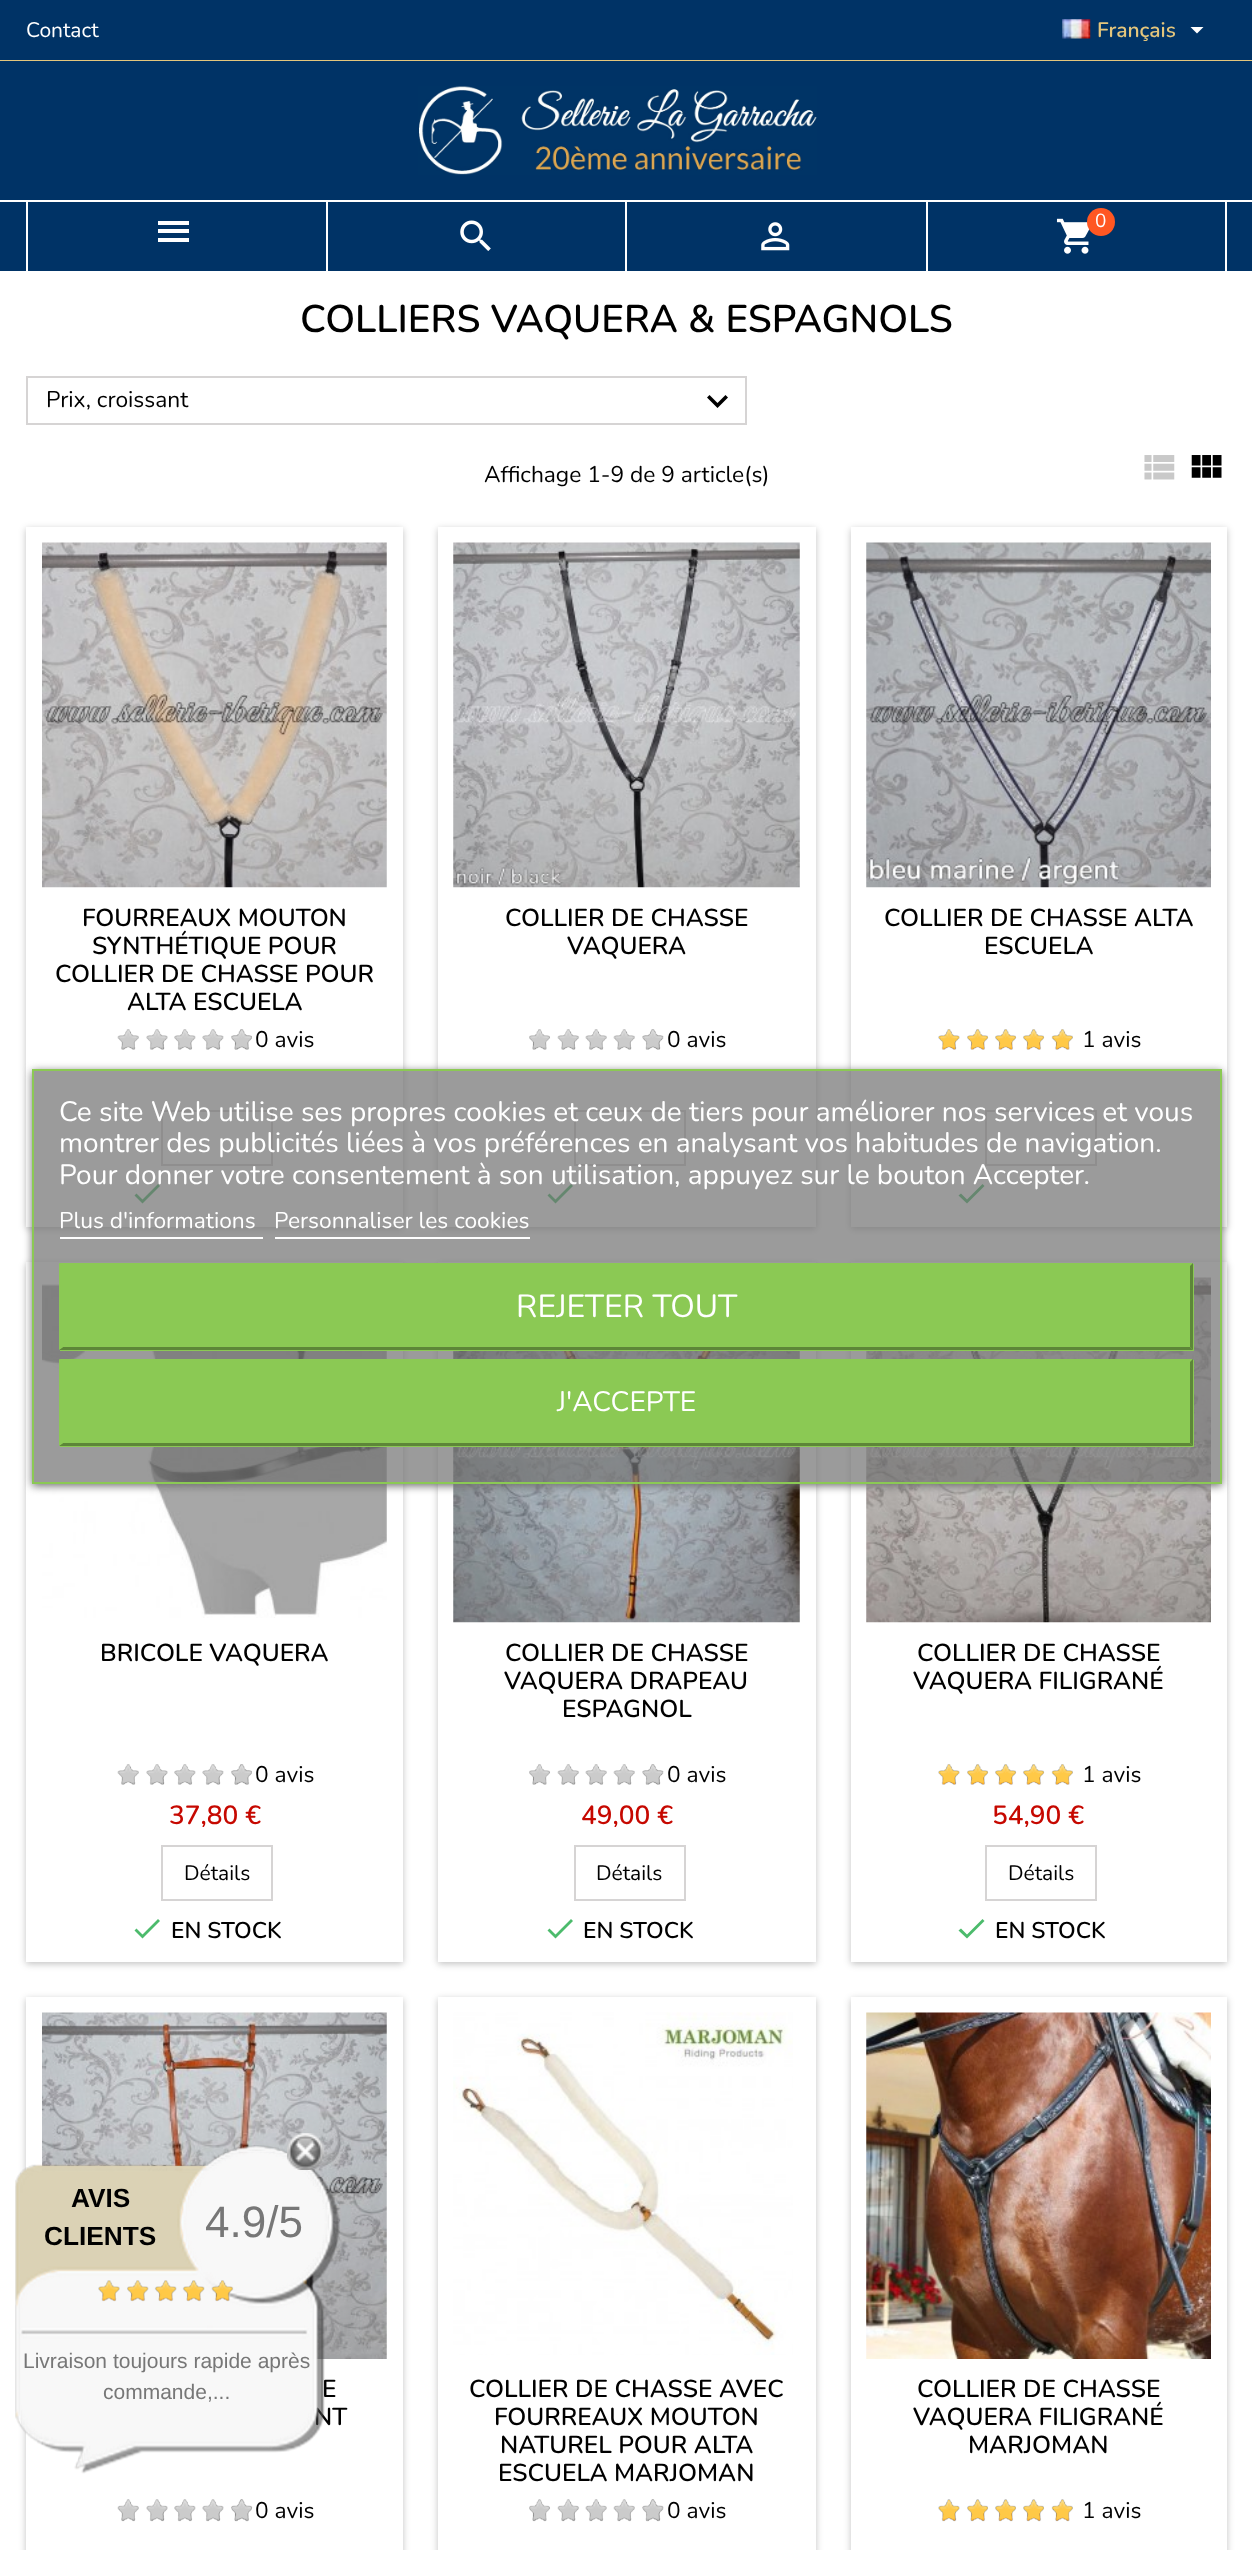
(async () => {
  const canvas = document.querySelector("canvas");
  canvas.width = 1252;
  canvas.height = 2550;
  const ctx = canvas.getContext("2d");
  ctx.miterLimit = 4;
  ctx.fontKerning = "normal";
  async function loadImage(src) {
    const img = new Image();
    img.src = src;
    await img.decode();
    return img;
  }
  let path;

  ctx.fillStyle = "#ffffff";
  ctx.fillRect(0, 0, 1252, 2550);
  ctx.fillStyle = "#003366";
  ctx.fillRect(0, 0, 1252, 60);
  ctx.fillStyle = "#e4c67c";
  ctx.fillRect(0, 60, 1252, 1);
  ctx.drawImage(await loadImage("img/1.png"), 1062, 19, 29, 20);
  ctx.fillStyle = "#ffffff";
  path = new Path2D("M1190.5 27H1203.5L1197 33.5Z");
  ctx.fill(path);
  for (const [x, y, w, h, color] of [
    [0, 61, 1252, 210, "#003366"],
    [158, 221, 31, 4, "#ffffff"],
    [158, 229, 31, 4, "#ffffff"],
    [158, 238, 31, 4, "#ffffff"],
  ]) {
    ctx.fillStyle = color;
    ctx.fillRect(x, y, w, h);
  }
  ctx.drawImage(await loadImage("img/2.png"), 418, 86, 399, 89);
  for (const [x, y, w, h, color] of [
    [0, 200, 1252, 2, "#ffffff"],
    [326, 201, 2, 70, "#ffffff"],
    [26, 201, 2, 70, "#ffffff"],
    [625, 201, 2, 70, "#ffffff"],
  ]) {
    ctx.fillStyle = color;
    ctx.fillRect(x, y, w, h);
  }
  ctx.drawImage(await loadImage("img/3.png"), 460, 220, 31, 31);
  ctx.fillRect(926, 201, 2, 70);
  ctx.drawImage(await loadImage("img/4.png"), 761, 222, 29, 29);
  ctx.fillRect(1225, 201, 2, 70);
  ctx.drawImage(await loadImage("img/5.png"), 1056, 218, 34, 36);
  ctx.fillStyle = "#ff5722";
  ctx.beginPath();
  ctx.arc(1101, 222, 14, 0, Math.PI * 2);
  ctx.fill();
  ctx.strokeStyle = "#d6d4d4";
  ctx.lineWidth = 2;
  ctx.strokeRect(27, 377, 719, 47);
  ctx.fillStyle = "#000000";
  path = new Path2D("M709.5 395L717.5 403L725.5 395L728 397.5L717.5 408L707 397.5Z");
  ctx.fill(path);
  ctx.drawImage(await loadImage("img/6.png"), 1144, 455, 31, 25);
  ctx.drawImage(await loadImage("img/7.png"), 1191, 455, 31, 23);
  ctx.fillStyle = "rgba(0, 0, 0, 0.24)";
  ctx.filter = "blur(3.5px)";
  ctx.beginPath();
  ctx.rect(26, 529, 377, 700);
  ctx.fill();
  ctx.filter = "none";
  ctx.fillStyle = "#ffffff";
  ctx.fillRect(26, 527, 377, 700);
  ctx.drawImage(await loadImage("img/8.png"), 42, 542, 345, 346);
  ctx.drawImage(await loadImage("img/9.png"), 117, 1029, 135, 21);
  ctx.strokeRect(162, 1111, 110, 54);
  ctx.fillStyle = "#4cbb6c";
  path = new Path2D("M142.5 1199.5L158 1184L160 1186L142.5 1203.5L134.5 1195.5L136.5 1193.5Z");
  ctx.fill(path);
  ctx.fillStyle = "rgba(0, 0, 0, 0.24)";
  ctx.filter = "blur(3.5px)";
  ctx.beginPath();
  ctx.rect(438, 529, 378, 700);
  ctx.fill();
  ctx.filter = "none";
  ctx.fillStyle = "#ffffff";
  ctx.fillRect(438, 527, 378, 700);
  ctx.drawImage(await loadImage("img/10.png"), 453, 542, 347, 346);
  ctx.drawImage(await loadImage("img/11.png"), 529, 1029, 135, 21);
  ctx.strokeRect(575, 1111, 110, 54);
  ctx.fillStyle = "#4cbb6c";
  path = new Path2D("M555.5 1199.5L571 1184L573 1186L555.5 1203.5L547.5 1195.5L549.5 1193.5Z");
  ctx.fill(path);
  ctx.fillStyle = "rgba(0, 0, 0, 0.24)";
  ctx.filter = "blur(3.5px)";
  ctx.beginPath();
  ctx.rect(851, 529, 376, 700);
  ctx.fill();
  ctx.filter = "none";
  ctx.fillStyle = "#ffffff";
  ctx.fillRect(851, 527, 376, 700);
  ctx.drawImage(await loadImage("img/12.png"), 866, 542, 345, 346);
  ctx.drawImage(await loadImage("img/13.png"), 938, 1029, 135, 21);
  ctx.strokeRect(986, 1111, 110, 54);
  ctx.fillStyle = "#4cbb6c";
  path = new Path2D("M967 1199.5L982.5 1184L984.5 1186L967 1203.5L958.5 1195.5L961 1193.5Z");
  ctx.fill(path);
  ctx.fillStyle = "rgba(0, 0, 0, 0.24)";
  ctx.filter = "blur(3.5px)";
  ctx.beginPath();
  ctx.rect(26, 1264, 377, 700);
  ctx.fill();
  ctx.filter = "none";
  ctx.fillStyle = "#ffffff";
  ctx.fillRect(26, 1262, 377, 700);
  ctx.drawImage(await loadImage("img/14.png"), 42, 1279, 345, 339);
  ctx.drawImage(await loadImage("img/9.png"), 117, 1764, 135, 21);
  ctx.strokeRect(162, 1846, 110, 54);
  ctx.fillStyle = "#4cbb6c";
  path = new Path2D("M142.5 1934.5L158 1919L160 1921L142.5 1938.5L134.5 1930.5L136.5 1928.5Z");
  ctx.fill(path);
  ctx.fillStyle = "rgba(0, 0, 0, 0.24)";
  ctx.filter = "blur(3.5px)";
  ctx.beginPath();
  ctx.rect(438, 1264, 378, 700);
  ctx.fill();
  ctx.filter = "none";
  ctx.fillStyle = "#ffffff";
  ctx.fillRect(438, 1262, 378, 700);
  ctx.drawImage(await loadImage("img/15.png"), 453, 1351, 347, 272);
  ctx.drawImage(await loadImage("img/11.png"), 529, 1764, 135, 21);
  ctx.strokeRect(575, 1846, 110, 54);
  ctx.fillStyle = "#4cbb6c";
  path = new Path2D("M555.5 1934.5L571 1919L573 1921L555.5 1938.5L547.5 1930.5L549.5 1928.5Z");
  ctx.fill(path);
  ctx.fillStyle = "rgba(0, 0, 0, 0.24)";
  ctx.filter = "blur(3.5px)";
  ctx.beginPath();
  ctx.rect(851, 1264, 376, 700);
  ctx.fill();
  ctx.filter = "none";
  ctx.fillStyle = "#ffffff";
  ctx.fillRect(851, 1262, 376, 700);
  ctx.drawImage(await loadImage("img/16.png"), 866, 1277, 345, 346);
  ctx.drawImage(await loadImage("img/13.png"), 938, 1764, 135, 21);
  ctx.strokeRect(986, 1846, 110, 54);
  ctx.fillStyle = "#4cbb6c";
  path = new Path2D("M967 1934.5L982.5 1919L984.5 1921L967 1938.5L958.5 1930.5L961 1928.5Z");
  ctx.fill(path);
  ctx.fillStyle = "rgba(0, 0, 0, 0.24)";
  ctx.filter = "blur(3.5px)";
  ctx.beginPath();
  ctx.rect(26, 1999, 377, 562);
  ctx.fill();
  ctx.filter = "none";
  ctx.fillStyle = "#ffffff";
  ctx.fillRect(26, 1997, 377, 553);
  ctx.drawImage(await loadImage("img/17.png"), 42, 2012, 345, 347);
  ctx.drawImage(await loadImage("img/18.png"), 117, 2499, 136, 23);
  ctx.fillStyle = "rgba(0, 0, 0, 0.24)";
  ctx.filter = "blur(3.5px)";
  ctx.beginPath();
  ctx.rect(438, 1999, 378, 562);
  ctx.fill();
  ctx.filter = "none";
  ctx.fillStyle = "#ffffff";
  ctx.fillRect(438, 1997, 378, 553);
  ctx.drawImage(await loadImage("img/19.png"), 453, 2012, 340, 343);
  ctx.drawImage(await loadImage("img/20.png"), 529, 2499, 135, 23);
  ctx.fillStyle = "rgba(0, 0, 0, 0.24)";
  ctx.filter = "blur(3.5px)";
  ctx.beginPath();
  ctx.rect(851, 1999, 376, 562);
  ctx.fill();
  ctx.filter = "none";
  ctx.fillStyle = "#ffffff";
  ctx.fillRect(851, 1997, 376, 553);
  ctx.drawImage(await loadImage("img/21.png"), 866, 2012, 345, 347);
  ctx.drawImage(await loadImage("img/22.png"), 938, 2499, 135, 23);
  ctx.save();
  path = new Path2D("M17 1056H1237V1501H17ZM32 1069H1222V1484H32Z");
  ctx.clip(path, "evenodd");
  ctx.fillStyle = "#707070";
  ctx.filter = "blur(4.5px)";
  ctx.beginPath();
  ctx.rect(32, 1071, 1190, 415);
  ctx.fill();
  ctx.filter = "none";
  ctx.restore();
  ctx.fillStyle = "rgba(112, 112, 112, 0.7)";
  ctx.beginPath();
  ctx.rect(33, 1070, 1188, 413);
  ctx.fill();
  ctx.strokeStyle = "#8bc954";
  ctx.stroke();
  for (const [x, y, w, h, color] of [
    [60, 1237, 203, 2, "#ffffff"],
    [275, 1237, 255, 2, "#ffffff"],
    [60, 1264, 1134, 87, "#8bc954"],
  ]) {
    ctx.fillStyle = color;
    ctx.fillRect(x, y, w, h);
  }
  path = new Path2D("M59 1263H1193L1190 1266H63Z");
  ctx.fill(path);
  ctx.fillStyle = "#5d8638";
  path = new Path2D("M1193 1263V1350L1190 1347V1266Z");
  ctx.fill(path);
  path = new Path2D("M1193 1350H59L63 1347H1190Z");
  ctx.fill(path);
  ctx.fillStyle = "#8bc954";
  path = new Path2D("M59 1350V1263L63 1266V1347Z");
  ctx.fill(path);
  ctx.fillRect(60, 1360, 1134, 87);
  path = new Path2D("M59 1359H1193L1190 1362H63Z");
  ctx.fill(path);
  ctx.fillStyle = "#5d8638";
  path = new Path2D("M1193 1359V1446L1190 1443V1362Z");
  ctx.fill(path);
  path = new Path2D("M1193 1446H59L63 1443H1190Z");
  ctx.fill(path);
  ctx.fillStyle = "#8bc954";
  path = new Path2D("M59 1446V1359L63 1362V1443Z");
  ctx.fill(path);
  ctx.font = "21px Nunito";
  ctx.fillStyle = "#ffffff";
  ctx.fillText("Contact", 26, 37);
  ctx.font = "600 21px Nunito";
  ctx.fillStyle = "#e4c67c";
  ctx.fillText("Français", 1097, 37);
  ctx.font = "19px Nunito";
  ctx.fillStyle = "#ffffff";
  ctx.fillText("0", 1095, 227);
  ctx.font = "600 38.5px Nunito";
  ctx.fillStyle = "#000000";
  ctx.fillText("COLLIERS VAQUERA & ESPAGNOLS", 300, 332);
  ctx.font = "22.75px Nunito";
  ctx.fillText("Prix, croissant", 46, 407);
  ctx.fillText("Affichage 1-9 de 9 article(s)", 484, 482);
  ctx.font = "600 24.5px Nunito";
  for (const [text, x, y] of [
    ["FOURREAUX MOUTON", 82, 926],
    ["SYNTHÉTIQUE POUR", 92, 954],
    ["COLLIER DE CHASSE POUR", 55, 982],
    ["ALTA ESCUELA", 127, 1010],
  ]) {
    ctx.fillText(text, x, y);
  }
  ctx.font = "22.75px Nunito";
  ctx.fillText("0 avis", 255, 1047);
  ctx.font = "600 24.5px Nunito";
  ctx.fillText("COLLIER DE CHASSE", 505, 926);
  ctx.fillText("VAQUERA", 567, 954);
  ctx.font = "22.75px Nunito";
  ctx.fillText("0 avis", 667, 1047);
  ctx.font = "600 24.5px Nunito";
  ctx.fillText("COLLIER DE CHASSE ALTA", 884, 926);
  ctx.fillText("ESCUELA", 984, 954);
  ctx.font = "22.75px Nunito";
  ctx.fillText("1 avis", 1082, 1047);
  ctx.font = "600 24.5px Nunito";
  ctx.fillText("BRICOLE VAQUERA", 100, 1661);
  ctx.font = "22.75px Nunito";
  ctx.fillText("0 avis", 255, 1782);
  ctx.font = "600 26.25px Nunito";
  ctx.fillStyle = "#c60800";
  ctx.fillText("37,80 €", 169, 1824);
  ctx.font = "21px Nunito";
  ctx.fillStyle = "#000000";
  ctx.fillText("Détails", 184, 1880);
  ctx.font = "600 22.75px Nunito";
  ctx.fillText("EN STOCK", 171, 1938);
  ctx.font = "600 24.5px Nunito";
  for (const [text, x, y] of [
    ["COLLIER DE CHASSE", 505, 1661],
    ["VAQUERA DRAPEAU", 504, 1689],
    ["ESPAGNOL", 562, 1717],
  ]) {
    ctx.fillText(text, x, y);
  }
  ctx.font = "22.75px Nunito";
  ctx.fillText("0 avis", 667, 1782);
  ctx.font = "600 26.25px Nunito";
  ctx.fillStyle = "#c60800";
  ctx.fillText("49,00 €", 581, 1824);
  ctx.font = "21px Nunito";
  ctx.fillStyle = "#000000";
  ctx.fillText("Détails", 596, 1880);
  ctx.font = "600 22.75px Nunito";
  ctx.fillText("EN STOCK", 583, 1938);
  ctx.font = "600 24.5px Nunito";
  ctx.fillText("COLLIER DE CHASSE", 917, 1661);
  ctx.fillText("VAQUERA FILIGRANÉ", 913, 1689);
  ctx.font = "22.75px Nunito";
  ctx.fillText("1 avis", 1082, 1782);
  ctx.font = "600 26.25px Nunito";
  ctx.fillStyle = "#c60800";
  ctx.fillText("54,90 €", 992, 1824);
  ctx.font = "21px Nunito";
  ctx.fillStyle = "#000000";
  ctx.fillText("Détails", 1008, 1880);
  ctx.font = "600 22.75px Nunito";
  ctx.fillText("EN STOCK", 995, 1938);
  ctx.font = "600 24.5px Nunito";
  ctx.fillText("E", 322, 2397);
  ctx.fillText("NT", 314, 2425);
  ctx.font = "22.75px Nunito";
  ctx.fillText("0 avis", 255, 2518);
  ctx.font = "600 24.5px Nunito";
  for (const [text, x, y] of [
    ["COLLIER DE CHASSE AVEC", 469, 2397],
    ["FOURREAUX MOUTON", 494, 2425],
    ["NATUREL POUR ALTA", 500, 2453],
    ["ESCUELA MARJOMAN", 498, 2481],
  ]) {
    ctx.fillText(text, x, y);
  }
  ctx.font = "22.75px Nunito";
  ctx.fillText("0 avis", 667, 2518);
  ctx.font = "600 24.5px Nunito";
  for (const [text, x, y] of [
    ["COLLIER DE CHASSE", 917, 2397],
    ["VAQUERA FILIGRANÉ", 913, 2425],
    ["MARJOMAN", 968, 2453],
  ]) {
    ctx.fillText(text, x, y);
  }
  ctx.font = "22.75px Nunito";
  ctx.fillText("1 avis", 1082, 2518);
  ctx.font = "28px Nunito";
  ctx.fillStyle = "#ffffff";
  for (const [text, x, y] of [
    ["Ce site Web utilise ses propres cookies et ceux de tiers pour améliorer nos services et vous", 59, 1121],
    ["montrer des publicités liées à vos préférences en analysant vos habitudes de navigation.", 59, 1152],
    ["Pour donner votre consentement à son utilisation, appuyez sur le bouton Accepter.", 59, 1184],
  ]) {
    ctx.fillText(text, x, y);
  }
  ctx.font = "22.75px Nunito";
  ctx.fillText("Plus d'informations", 59, 1228);
  ctx.fillText("Personnaliser les cookies", 274, 1228);
  ctx.font = "32px Nunito";
  ctx.fillText("REJETER TOUT", 516, 1317);
  ctx.font = "28px Nunito";
  ctx.fillText("J'ACCEPTE", 557, 1411);
  ctx.drawImage(await loadImage("img/24.png"), 15, 2145, 325, 329);
  ctx.drawImage(await loadImage("img/23.png"), 287, 2133, 37, 37);
  ctx.font = "bold 26.25px Liberation Sans";
  ctx.fillStyle = "#000000";
  ctx.fillText("AVIS", 71, 2207);
  ctx.fillText("CLIENTS", 44, 2245);
  ctx.font = "44px Liberation Sans";
  ctx.fillStyle = "#777777";
  ctx.fillText("4.9/5", 205, 2237);
  ctx.drawImage(await loadImage("img/25.png"), 98, 2280, 136, 22);
  ctx.font = "21px Liberation Sans";
  ctx.fillText("Livraison toujours rapide après", 23, 2368);
  ctx.fillText("commande,...", 103, 2399);
})();
